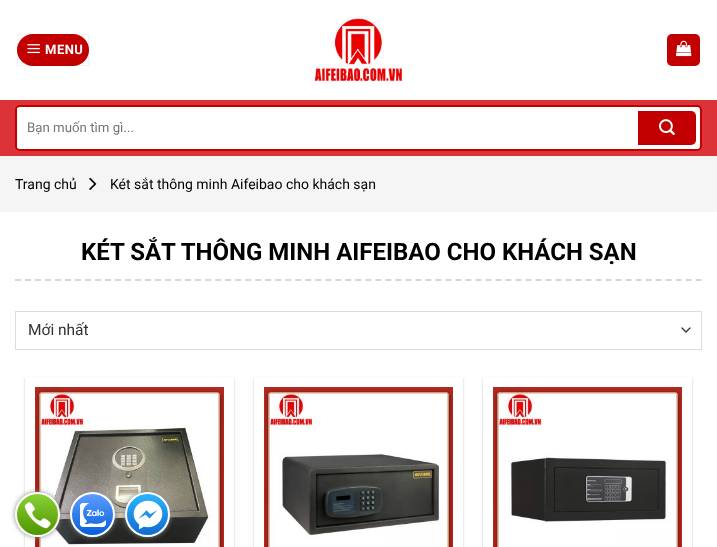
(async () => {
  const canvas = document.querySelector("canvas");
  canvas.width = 717;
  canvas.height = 547;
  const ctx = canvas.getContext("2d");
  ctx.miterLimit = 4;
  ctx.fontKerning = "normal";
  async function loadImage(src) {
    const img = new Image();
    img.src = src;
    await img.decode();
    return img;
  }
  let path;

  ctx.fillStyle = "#ffffff";
  ctx.fillRect(0, 0, 717, 547);
  ctx.fillStyle = "#c20001";
  ctx.beginPath();
  ctx.roundRect(17, 34, 72, 32, 16);
  ctx.fill();
  ctx.strokeStyle = "rgba(0, 0, 0, 0.05)";
  ctx.strokeRect(17.5, 34.5, 71, 31);
  ctx.drawImage(await loadImage("img/1.png"), 27, 44, 13, 10);
  ctx.drawImage(await loadImage("img/2.png"), 314, 16, 91, 66);
  ctx.beginPath();
  ctx.roundRect(667, 34, 33, 32, 5);
  ctx.fill();
  ctx.strokeRect(667.5, 34.5, 32, 31);
  ctx.drawImage(await loadImage("img/3.png"), 676, 40, 16, 17);
  ctx.fillStyle = "#dc3338";
  ctx.fillRect(0, 100, 717, 56);
  ctx.beginPath();
  ctx.roundRect(16, 106, 685, 44, 4);
  ctx.strokeStyle = "#c20001";
  ctx.lineWidth = 2;
  ctx.stroke();
  ctx.fillStyle = "#ffffff";
  ctx.beginPath();
  ctx.roundRect(17, 107, 683, 42, 3);
  ctx.fill();
  ctx.fillRect(17, 108, 1, 40);
  ctx.fillStyle = "#c20001";
  ctx.beginPath();
  ctx.roundRect(638, 111, 58, 34, [0, 5, 5, 0]);
  ctx.fill();
  ctx.strokeStyle = "rgba(0, 0, 0, 0.05)";
  ctx.lineWidth = 1;
  ctx.strokeRect(638.5, 111.5, 57, 33);
  ctx.drawImage(await loadImage("img/4.png"), 659, 119, 16, 16);
  ctx.fillStyle = "#f5f5f5";
  ctx.fillRect(0, 156, 717, 56);
  ctx.drawImage(await loadImage("img/5.png"), 89, 177, 8, 13);
  path = new Path2D("M15 280H702");
  ctx.strokeStyle = "#d6d6d6";
  ctx.lineWidth = 2;
  ctx.setLineDash([6, 4.01]);
  ctx.stroke(path);
  path = new Path2D("M682 328L686 332L690 328");
  ctx.strokeStyle = "#333333";
  ctx.lineWidth = 1.3;
  ctx.lineCap = "round";
  ctx.lineJoin = "round";
  ctx.setLineDash([]);
  ctx.stroke(path);
  ctx.strokeStyle = "#dddddd";
  ctx.lineWidth = 1;
  ctx.lineJoin = "miter";
  ctx.strokeRect(15.5, 311.5, 686, 38);
  ctx.save();
  path = new Path2D("M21 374H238V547H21ZM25 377H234V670H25Z");
  ctx.clip(path, "evenodd");
  ctx.fillStyle = "rgba(0, 0, 0, 0.24)";
  ctx.filter = "blur(1px)";
  ctx.beginPath();
  ctx.rect(25, 378, 209, 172);
  ctx.fill();
  ctx.filter = "none";
  ctx.restore();
  ctx.drawImage(await loadImage("img/6.png"), 35, 387, 189, 160);
  ctx.save();
  path = new Path2D("M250 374H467V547H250ZM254 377H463V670H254Z");
  ctx.clip(path, "evenodd");
  ctx.fillStyle = "rgba(0, 0, 0, 0.24)";
  ctx.filter = "blur(1px)";
  ctx.beginPath();
  ctx.rect(254, 378, 209, 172);
  ctx.fill();
  ctx.filter = "none";
  ctx.restore();
  ctx.drawImage(await loadImage("img/7.png"), 264, 387, 189, 160);
  ctx.save();
  path = new Path2D("M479 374H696V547H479ZM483 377H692V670H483Z");
  ctx.clip(path, "evenodd");
  ctx.fillStyle = "rgba(0, 0, 0, 0.24)";
  ctx.filter = "blur(1px)";
  ctx.beginPath();
  ctx.rect(483, 378, 209, 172);
  ctx.fill();
  ctx.filter = "none";
  ctx.restore();
  ctx.drawImage(await loadImage("img/8.png"), 493, 387, 189, 160);
  ctx.fillStyle = "#888888";
  ctx.filter = "blur(2.5px)";
  ctx.beginPath();
  ctx.roundRect(15, 492, 45, 45, 22.5);
  ctx.fill();
  ctx.filter = "none";
  ctx.drawImage(await loadImage("img/9.png"), 16, 493, 44, 44);
  ctx.beginPath();
  ctx.arc(37.5, 514.5, 21.5, 0, Math.PI * 2);
  ctx.strokeStyle = "#ffffff";
  ctx.lineWidth = 2;
  ctx.stroke();
  ctx.filter = "blur(2.5px)";
  ctx.beginPath();
  ctx.roundRect(70, 492, 45, 45, 22.5);
  ctx.fill();
  ctx.filter = "none";
  ctx.drawImage(await loadImage("img/10.png"), 71, 493, 44, 44);
  ctx.beginPath();
  ctx.arc(92.5, 514.5, 21.5, 0, Math.PI * 2);
  ctx.stroke();
  ctx.filter = "blur(2.5px)";
  ctx.beginPath();
  ctx.roundRect(125, 492, 45, 45, 22.5);
  ctx.fill();
  ctx.filter = "none";
  ctx.drawImage(await loadImage("img/11.png"), 126, 493, 44, 44);
  ctx.beginPath();
  ctx.arc(147.5, 514.5, 21.5, 0, Math.PI * 2);
  ctx.stroke();
  ctx.letterSpacing = "0.5px";
  ctx.font = "bold 13px Roboto";
  ctx.fillStyle = "#ffffff";
  ctx.fillText("MENU", 45, 54);
  ctx.letterSpacing = "0px";
  ctx.font = "13.25px Roboto";
  ctx.fillStyle = "#757575";
  ctx.fillText("Bạn muốn tìm gì...", 27, 132);
  ctx.font = "14px Roboto";
  ctx.fillStyle = "#000000";
  ctx.fillText("Trang chủ", 15, 189);
  ctx.fillText("Két sắt thông minh Aifeibao cho khách sạn", 110, 189);
  ctx.font = "bold 24px Roboto";
  ctx.fillText("KÉT SẮT THÔNG MINH AIFEIBAO CHO KHÁCH SẠN", 81, 260);
  ctx.font = "15.5px Roboto";
  ctx.fillStyle = "#333333";
  ctx.fillText("Mới nhất", 28, 335);
})();
